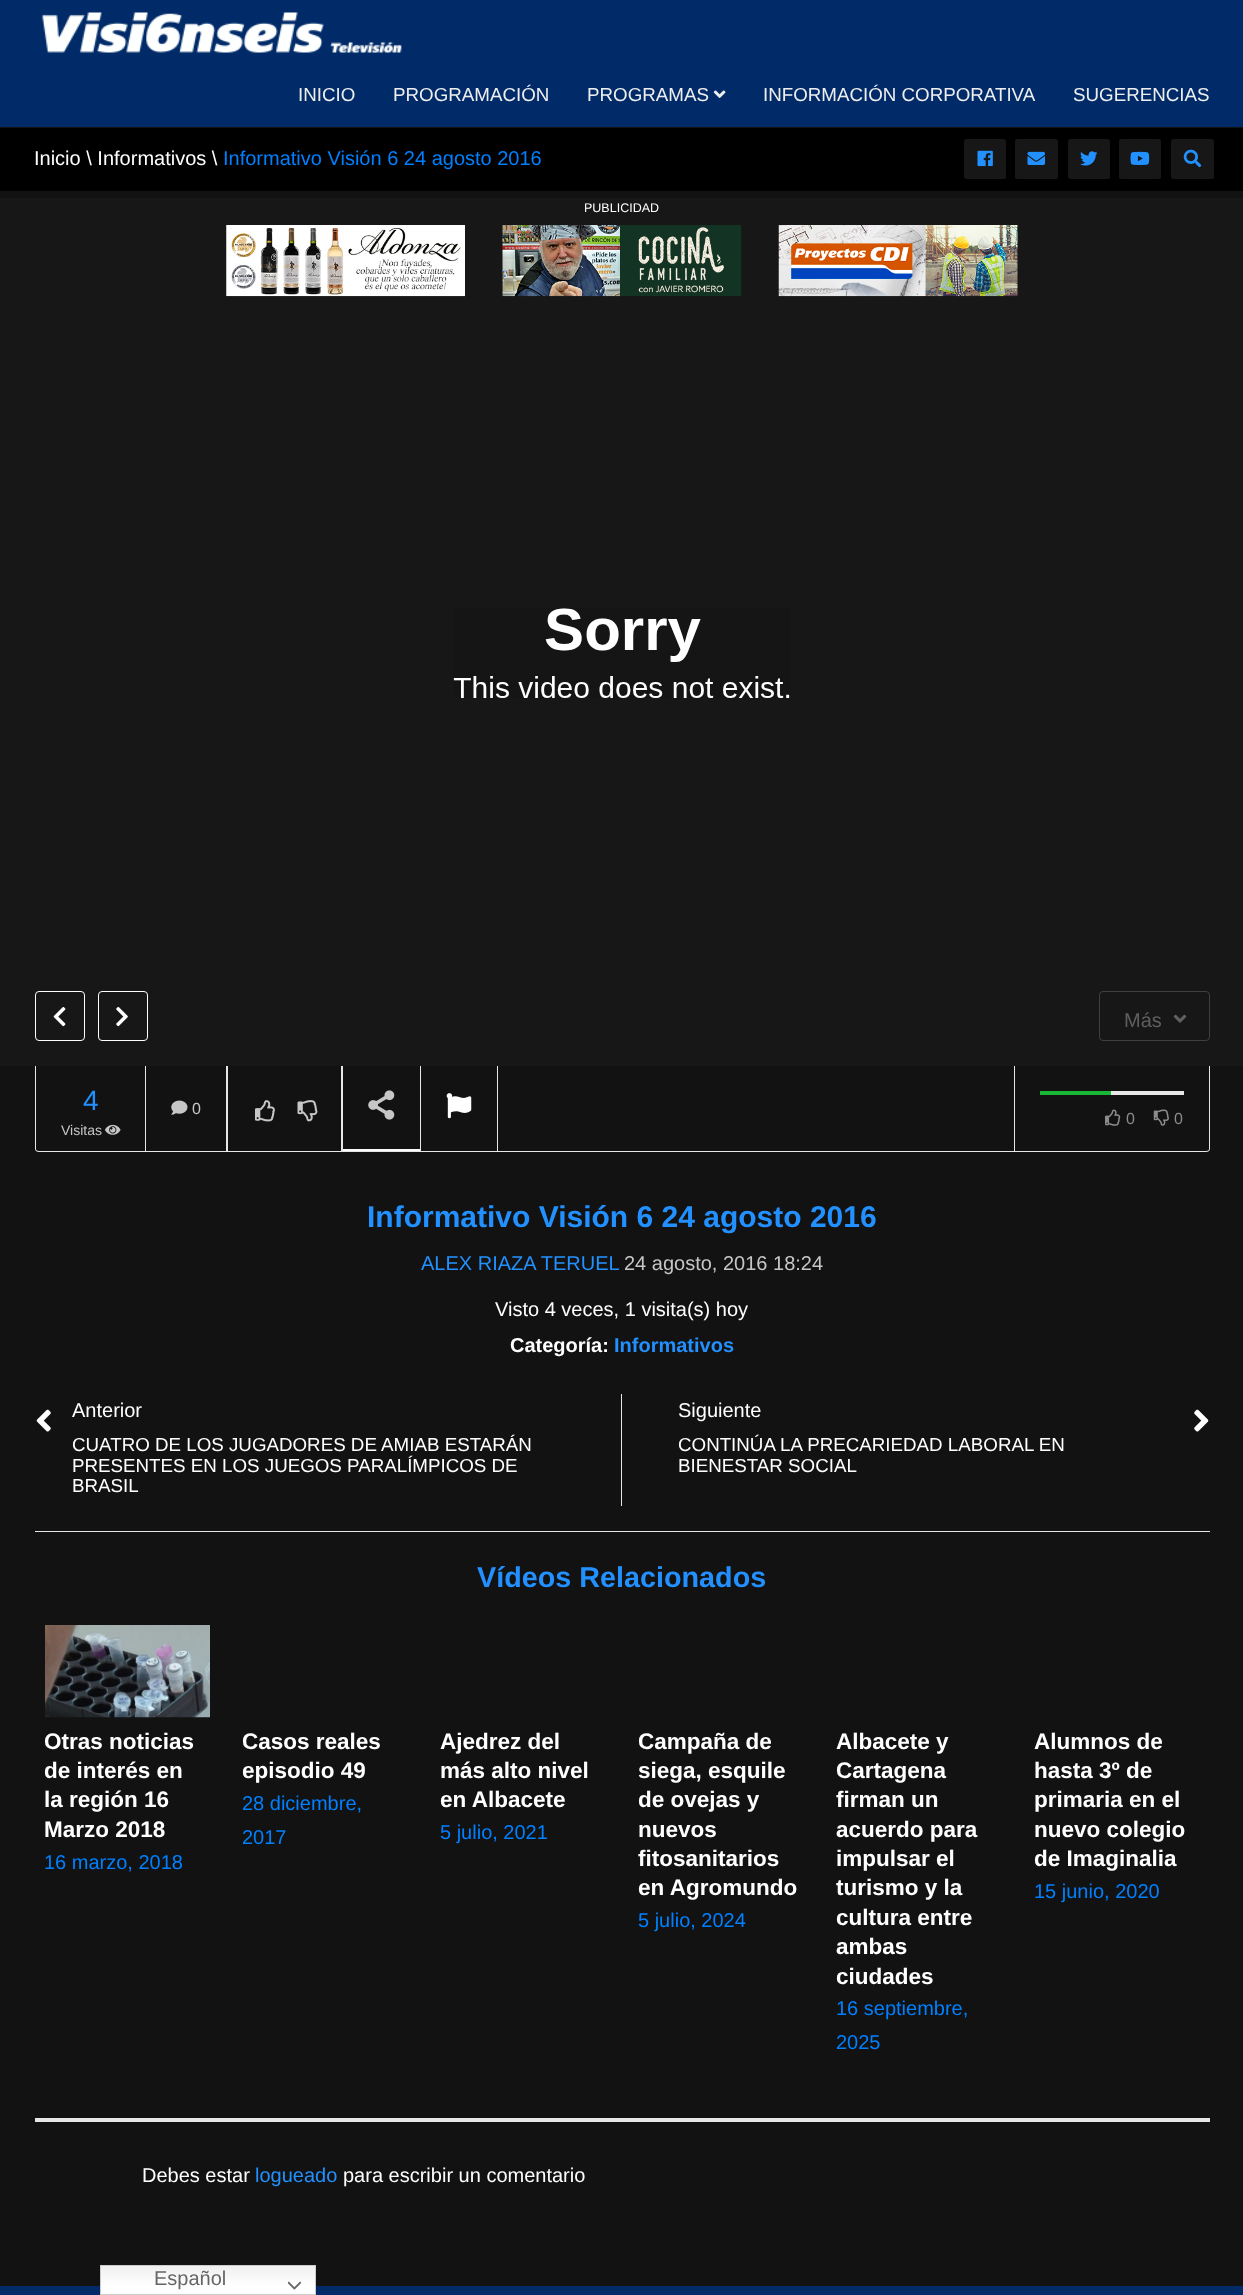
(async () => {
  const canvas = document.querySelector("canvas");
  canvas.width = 1243;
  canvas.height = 2295;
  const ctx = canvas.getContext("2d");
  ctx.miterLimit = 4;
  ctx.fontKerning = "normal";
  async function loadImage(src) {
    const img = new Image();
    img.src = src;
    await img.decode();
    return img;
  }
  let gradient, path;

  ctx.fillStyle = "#121212";
  ctx.fillRect(0, 0, 1243, 2295);
  ctx.fillStyle = "#002b68";
  ctx.fillRect(0, 0, 1243, 127);
  ctx.drawImage(await loadImage("img/1.png"), 42, 12, 360, 41);
  ctx.drawImage(await loadImage("img/2.png"), 713, 90, 13, 8);
  ctx.fillStyle = "#000000";
  ctx.fillRect(0, 128, 1243, 63);
  ctx.fillStyle = "#171717";
  ctx.beginPath();
  ctx.roundRect(964, 139, 42, 40, 2.5);
  ctx.fill();
  ctx.drawImage(await loadImage("img/3.png"), 977, 150, 16, 17);
  ctx.beginPath();
  ctx.roundRect(1015, 139, 43, 40, 2.5);
  ctx.fill();
  ctx.drawImage(await loadImage("img/4.png"), 1027, 151, 18, 14);
  ctx.beginPath();
  ctx.roundRect(1068, 139, 42, 40, 2.5);
  ctx.fill();
  ctx.drawImage(await loadImage("img/5.png"), 1080, 151, 18, 15);
  ctx.beginPath();
  ctx.roundRect(1119, 139, 42, 40, 2.5);
  ctx.fill();
  ctx.drawImage(await loadImage("img/6.png"), 1130, 151, 20, 14);
  ctx.beginPath();
  ctx.roundRect(1171, 139, 43, 40, 2.5);
  ctx.fill();
  ctx.drawImage(await loadImage("img/7.png"), 1183, 149, 19, 19);
  ctx.fillRect(0, 198, 1243, 868);
  ctx.drawImage(await loadImage("img/8.png"), 226, 225, 239, 72);
  ctx.drawImage(await loadImage("img/9.png"), 502, 225, 240, 72);
  ctx.drawImage(await loadImage("img/10.png"), 778, 225, 240, 72);
  ctx.drawImage(await loadImage("img/11.png"), 453, 608, 337, 90);
  ctx.beginPath();
  ctx.roundRect(35.5, 991.5, 49, 49, 3.5);
  ctx.strokeStyle = "#ffffff";
  ctx.stroke();
  ctx.drawImage(await loadImage("img/12.png"), 53, 1007, 13, 20);
  ctx.beginPath();
  ctx.roundRect(98.5, 991.5, 49, 49, 3.5);
  ctx.stroke();
  ctx.drawImage(await loadImage("img/13.png"), 116, 1007, 12, 20);
  ctx.beginPath();
  ctx.roundRect(1099.5, 991.5, 110, 49, 3.5);
  ctx.strokeStyle = "#3f3f3f";
  ctx.stroke();
  ctx.drawImage(await loadImage("img/14.png"), 1173, 1014, 14, 9);
  ctx.fillStyle = "#e7e7e7";
  path = new Path2D("M35 1066H1210V1149C1210 1151 1208 1152 1206 1152H39C37 1152 35 1151 35 1149ZM36 1066H1209V1149C1209 1150 1208 1151 1206 1151H39C37 1151 36 1150 36 1149Z");
  ctx.fill(path, "evenodd");
  ctx.drawImage(await loadImage("img/15.png"), 105, 1124, 16, 11);
  path = new Path2D("M146 1066V1151H145V1066ZM228 1066V1151H227V1066Z");
  ctx.fill(path, "evenodd");
  ctx.drawImage(await loadImage("img/16.png"), 171, 1100, 17, 15);
  path = new Path2D("M227 1066V1151H226V1066ZM343 1066V1151H342V1066Z");
  ctx.fill(path, "evenodd");
  ctx.drawImage(await loadImage("img/17.png"), 255, 1100, 20, 22);
  ctx.drawImage(await loadImage("img/18.png"), 297, 1100, 21, 22);
  path = new Path2D("M421 1066V1151H420V1066ZM498 1066V1151H497V1066Z");
  ctx.fill(path, "evenodd");
  path = new Path2D("M342 1066V1151H341V1066ZM421 1066V1151H420V1066Z");
  ctx.fill(path, "evenodd");
  ctx.drawImage(await loadImage("img/19.png"), 368, 1090, 27, 30);
  ctx.fillStyle = "#fbfbfb";
  ctx.fillRect(343, 1149, 77, 2);
  ctx.drawImage(await loadImage("img/20.png"), 446, 1093, 26, 26);
  for (const [x, y, w, h, color] of [
    [1014, 1066, 1, 85, "#e7e7e7"],
    [1111, 1091, 73, 4, "#e7e7e7"],
    [1040, 1091, 71, 4, "#18b736"],
  ]) {
    ctx.fillStyle = color;
    ctx.fillRect(x, y, w, h);
  }
  ctx.drawImage(await loadImage("img/21.png"), 1105, 1109, 16, 17);
  ctx.drawImage(await loadImage("img/22.png"), 1153, 1109, 16, 17);
  ctx.fillStyle = "#e7e7e7";
  ctx.fillRect(35, 1531, 1175, 1);
  ctx.fillRect(621, 1394, 1, 112);
  ctx.drawImage(await loadImage("img/23.png"), 36, 1409, 15, 23);
  ctx.drawImage(await loadImage("img/24.png"), 1194, 1409, 15, 23);
  ctx.fillRect(35, 2118, 1175, 4);
  ctx.drawImage(await loadImage("img/25.png"), 45, 1625, 165, 93);
  ctx.fillStyle = "#002b68";
  ctx.fillRect(0, 2286, 1243, 9);
  gradient = ctx.createLinearGradient(208, 2265, 208, 2295);
  gradient.addColorStop(0, "#efefef");
  gradient.addColorStop(0.7, "#ffffff");
  ctx.fillStyle = gradient;
  ctx.fillRect(101, 2266, 214, 28);
  ctx.strokeStyle = "#cccccc";
  ctx.strokeRect(100.5, 2265.5, 215, 29);
  ctx.drawImage(await loadImage("img/26.png"), 288, 2281, 13, 9);
  ctx.font = "18.75px Liberation Sans";
  ctx.fillStyle = "#eeeeee";
  for (const [text, x, y] of [
    ["INICIO", 298, 101],
    ["PROGRAMACIÓN", 393, 101],
    ["PROGRAMAS", 587, 101],
    ["INFORMACIÓN CORPORATIVA", 763, 101],
    ["SUGERENCIAS", 1073, 101],
  ]) {
    ctx.fillText(text, x, y);
  }
  ctx.font = "20px Liberation Sans";
  ctx.fillStyle = "#ffffff";
  ctx.fillText("Inicio \\ Informativos \\", 34, 165);
  ctx.fillStyle = "#0080ff";
  ctx.fillText("Informativo Visión 6 24 agosto 2016", 223, 165);
  ctx.font = "12.5px Liberation Sans";
  ctx.fillStyle = "#ffffff";
  ctx.fillText("PUBLICIDAD", 584, 212);
  ctx.font = "20px Liberation Sans";
  ctx.fillStyle = "#5f5f5f";
  ctx.fillText("Más", 1124, 1027);
  ctx.font = "28px Liberation Sans";
  ctx.fillStyle = "#2291ff";
  ctx.fillText("4", 83, 1110);
  ctx.font = "14px Liberation Sans";
  ctx.fillStyle = "#c6c6c6";
  ctx.fillText("Visitas", 61, 1135);
  ctx.font = "16px Liberation Sans";
  ctx.fillText("0", 192, 1114);
  ctx.fillStyle = "#8b8b8b";
  ctx.fillText("0", 1126, 1124);
  ctx.fillText("0", 1174, 1124);
  ctx.font = "bold 30px Liberation Sans";
  ctx.fillStyle = "#2291ff";
  ctx.fillText("Informativo Visión 6 24 agosto 2016", 367, 1227);
  ctx.font = "20px Liberation Sans";
  ctx.fillText("ALEX RIAZA TERUEL", 421, 1270);
  ctx.fillStyle = "#c6c6c6";
  ctx.fillText("24 agosto, 2016 18:24", 624, 1270);
  ctx.fillStyle = "#ffffff";
  ctx.fillText("Visto 4 veces, 1 visita(s) hoy", 495, 1316);
  ctx.font = "bold 20px Liberation Sans";
  ctx.fillText("Categoría:", 510, 1352);
  ctx.fillStyle = "#2291ff";
  ctx.fillText("Informativos", 614, 1352);
  ctx.font = "20px Liberation Sans";
  ctx.fillStyle = "#ffffff";
  ctx.fillText("Anterior", 72, 1417);
  ctx.font = "18.75px Liberation Sans";
  for (const [text, x, y] of [
    ["CUATRO DE LOS JUGADORES DE AMIAB ESTARÁN", 72, 1451],
    ["PRESENTES EN LOS JUEGOS PARALÍMPICOS DE", 72, 1472],
    ["BRASIL", 72, 1492],
  ]) {
    ctx.fillText(text, x, y);
  }
  ctx.font = "20px Liberation Sans";
  ctx.fillText("Siguiente", 678, 1417);
  ctx.font = "18.75px Liberation Sans";
  ctx.fillText("CONTINÚA LA PRECARIEDAD LABORAL EN", 678, 1451);
  ctx.fillText("BIENESTAR SOCIAL", 678, 1472);
  ctx.font = "bold 28.75px Liberation Sans";
  ctx.fillStyle = "#2291ff";
  ctx.fillText("Vídeos Relacionados", 477, 1587);
  ctx.font = "bold 22.5px Liberation Sans";
  ctx.fillStyle = "#ffffff";
  for (const [text, x, y] of [
    ["Otras noticias", 44, 1749],
    ["de interés en", 44, 1778],
    ["la región 16", 44, 1807],
    ["Marzo 2018", 44, 1837],
  ]) {
    ctx.fillText(text, x, y);
  }
  ctx.font = "20px Liberation Sans";
  ctx.fillStyle = "#0080ff";
  ctx.fillText("16 marzo, 2018", 44, 1869);
  ctx.font = "bold 22.5px Liberation Sans";
  ctx.fillStyle = "#ffffff";
  ctx.fillText("Casos reales", 242, 1749);
  ctx.fillText("episodio 49", 242, 1778);
  ctx.font = "20px Liberation Sans";
  ctx.fillStyle = "#0080ff";
  ctx.fillText("28 diciembre,", 242, 1810);
  ctx.fillText("2017", 242, 1844);
  ctx.font = "bold 22.5px Liberation Sans";
  ctx.fillStyle = "#ffffff";
  for (const [text, x, y] of [
    ["Ajedrez del", 440, 1749],
    ["más alto nivel", 440, 1778],
    ["en Albacete", 440, 1807],
  ]) {
    ctx.fillText(text, x, y);
  }
  ctx.font = "20px Liberation Sans";
  ctx.fillStyle = "#0080ff";
  ctx.fillText("5 julio, 2021", 440, 1839);
  ctx.font = "bold 22.5px Liberation Sans";
  ctx.fillStyle = "#ffffff";
  for (const [text, x, y] of [
    ["Campaña de", 638, 1749],
    ["siega, esquile", 638, 1778],
    ["de ovejas y", 638, 1807],
    ["nuevos", 638, 1837],
    ["fitosanitarios", 638, 1866],
    ["en Agromundo", 638, 1895],
  ]) {
    ctx.fillText(text, x, y);
  }
  ctx.font = "20px Liberation Sans";
  ctx.fillStyle = "#0080ff";
  ctx.fillText("5 julio, 2024", 638, 1927);
  ctx.font = "bold 22.5px Liberation Sans";
  ctx.fillStyle = "#ffffff";
  for (const [text, x, y] of [
    ["Albacete y", 836, 1749],
    ["Cartagena", 836, 1778],
    ["firman un", 836, 1807],
    ["acuerdo para", 836, 1837],
    ["impulsar el", 836, 1866],
    ["turismo y la", 836, 1895],
    ["cultura entre", 836, 1925],
    ["ambas", 836, 1954],
    ["ciudades", 836, 1984],
  ]) {
    ctx.fillText(text, x, y);
  }
  ctx.font = "20px Liberation Sans";
  ctx.fillStyle = "#0080ff";
  ctx.fillText("16 septiembre,", 836, 2015);
  ctx.fillText("2025", 836, 2049);
  ctx.font = "bold 22.5px Liberation Sans";
  ctx.fillStyle = "#ffffff";
  for (const [text, x, y] of [
    ["Alumnos de", 1034, 1749],
    ["hasta 3º de", 1034, 1778],
    ["primaria en el", 1034, 1807],
    ["nuevo colegio", 1034, 1837],
    ["de Imaginalia", 1034, 1866],
  ]) {
    ctx.fillText(text, x, y);
  }
  ctx.font = "20px Liberation Sans";
  ctx.fillStyle = "#0080ff";
  ctx.fillText("15 junio, 2020", 1034, 1898);
  ctx.fillStyle = "#ffffff";
  ctx.fillText("Debes estar", 142, 2182);
  ctx.fillStyle = "#2291ff";
  ctx.fillText("logueado", 255, 2182);
  ctx.fillStyle = "#ffffff";
  ctx.fillText("para escribir un comentario", 343, 2182);
  ctx.fillStyle = "#666666";
  ctx.fillText("Español", 154, 2285);
})();
